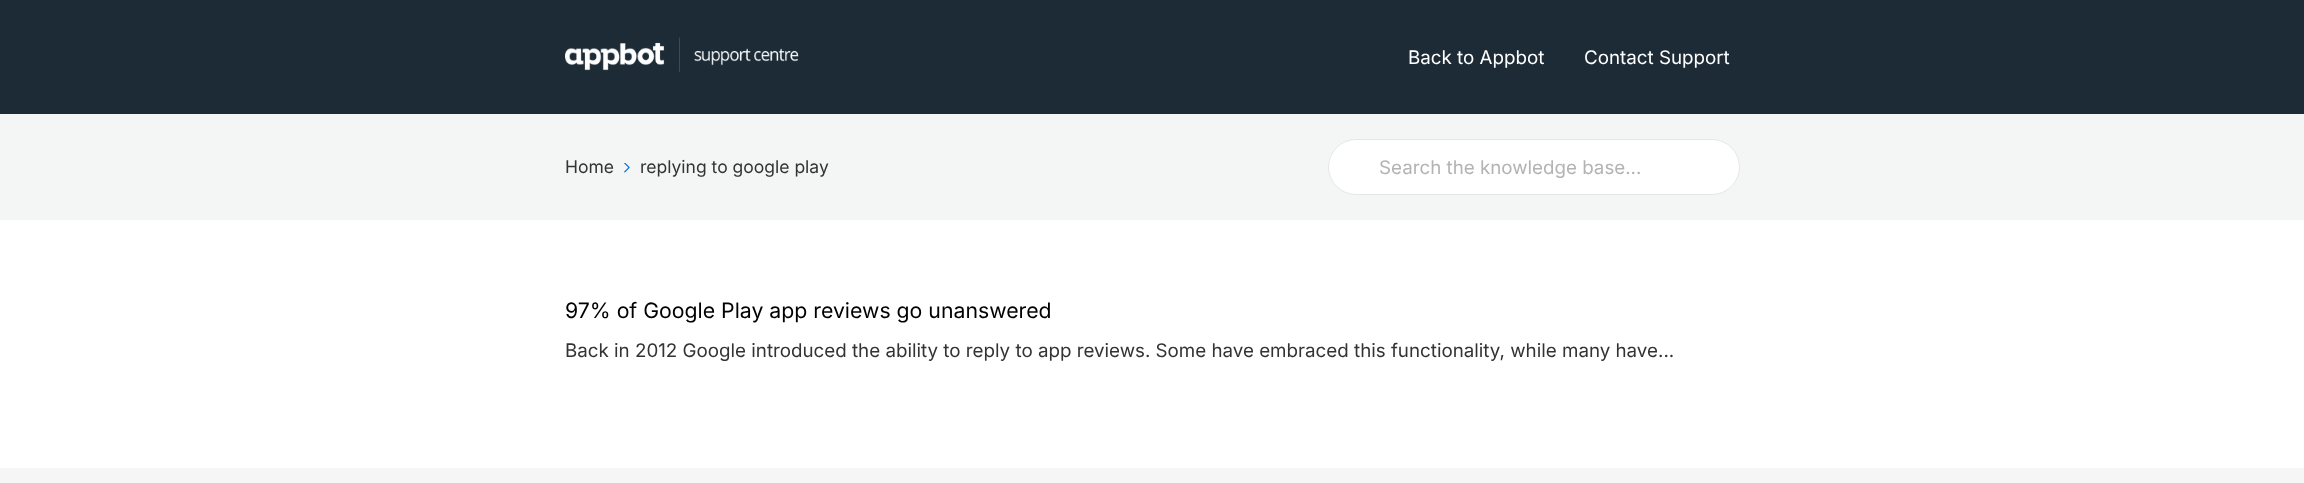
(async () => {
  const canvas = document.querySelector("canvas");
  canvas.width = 2304;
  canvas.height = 483;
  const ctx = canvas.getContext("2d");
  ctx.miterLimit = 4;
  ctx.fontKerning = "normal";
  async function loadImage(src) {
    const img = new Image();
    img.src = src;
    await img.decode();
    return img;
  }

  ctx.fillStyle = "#ffffff";
  ctx.fillRect(0, 0, 2304, 483);
  ctx.fillStyle = "#1d2b36";
  ctx.fillRect(0, 0, 2304, 114);
  ctx.drawImage(await loadImage("img/1.png"), 565, 37, 234, 35);
  ctx.fillStyle = "#f4f5f5";
  ctx.fillRect(0, 114, 2304, 106);
  ctx.drawImage(await loadImage("img/2.png"), 624, 163, 6, 10);
  ctx.fillStyle = "#ffffff";
  ctx.beginPath();
  ctx.roundRect(1328, 139, 412, 56, 28);
  ctx.fill();
  ctx.beginPath();
  ctx.roundRect(1328.5, 139.5, 411, 55, 27.5);
  ctx.strokeStyle = "rgba(204, 204, 204, 0.5)";
  ctx.stroke();
  ctx.fillStyle = "#f6f6f6";
  ctx.fillRect(0, 468, 2304, 15);
  ctx.font = "18.75px Inter";
  ctx.fillStyle = "#ffffff";
  ctx.fillText("Back to Appbot", 1408, 64);
  ctx.fillText("Contact Support", 1584, 64);
  ctx.font = "17.5px Inter";
  ctx.fillStyle = "#333333";
  ctx.fillText("Home", 565, 173);
  ctx.fillText("replying to google play", 640, 173);
  ctx.font = "18.75px Inter";
  ctx.fillStyle = "#b3b3b3";
  ctx.fillText("Search the knowledge base...", 1379, 174);
  ctx.font = "21.25px Inter";
  ctx.fillStyle = "#000000";
  ctx.fillText("97% of Google Play app reviews go unanswered", 565, 318);
  ctx.font = "18.75px Inter";
  ctx.fillStyle = "#333333";
  ctx.fillText("Back in 2012 Google introduced the ability to reply to app reviews. Some have embraced this functionality, while many have...", 565, 357);
})();
